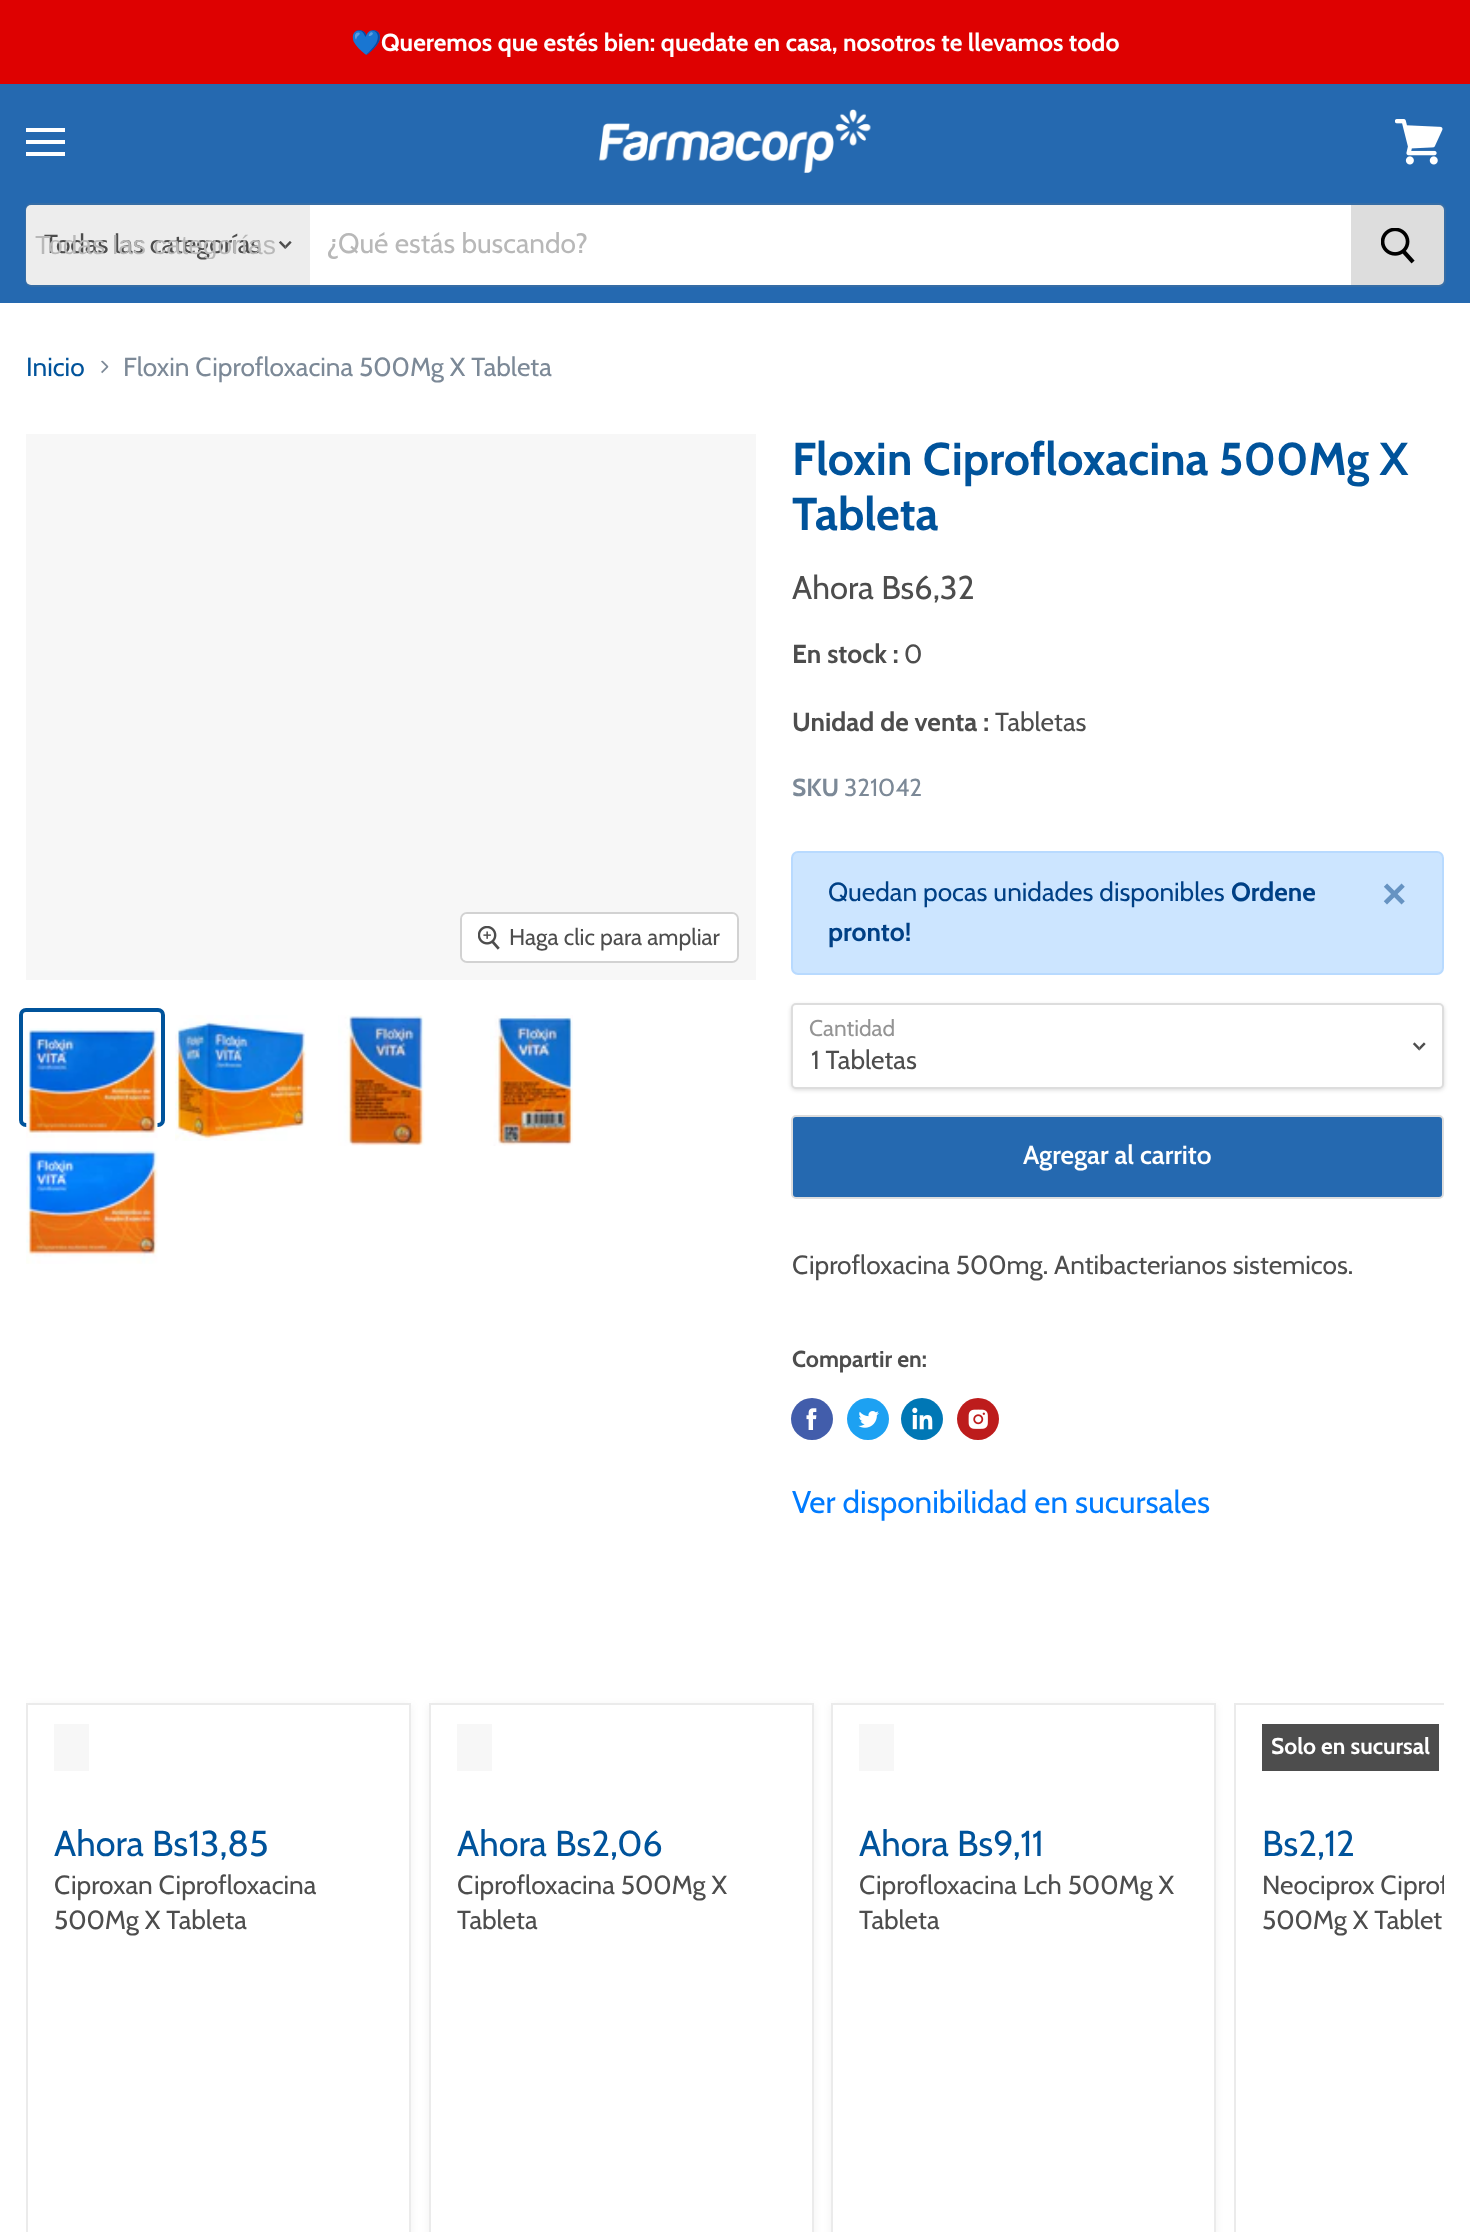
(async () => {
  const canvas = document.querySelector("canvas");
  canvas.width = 1470;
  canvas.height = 2232;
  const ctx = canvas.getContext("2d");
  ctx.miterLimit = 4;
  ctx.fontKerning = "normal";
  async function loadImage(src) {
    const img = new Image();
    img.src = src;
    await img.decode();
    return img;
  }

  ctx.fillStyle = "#ffffff";
  ctx.fillRect(0, 0, 1470, 2232);
  for (const [x, y, w, h, color] of [
    [0, 0, 1470, 84, "#de0101"],
    [0, 84, 1470, 219, "#2569b0"],
    [26, 128, 39, 4, "#ffffff"],
    [26, 140, 39, 4, "#ffffff"],
    [26, 152, 39, 4, "#ffffff"],
  ]) {
    ctx.fillStyle = color;
    ctx.fillRect(x, y, w, h);
  }
  ctx.drawImage(await loadImage("img/1.png"), 1395, 119, 48, 46);
  ctx.drawImage(await loadImage("img/2.png"), 599, 109, 272, 64);
  ctx.beginPath();
  ctx.roundRect(26, 204, 1419, 82, 6);
  ctx.strokeStyle = "rgba(127, 127, 127, 0.2)";
  ctx.lineWidth = 2;
  ctx.stroke();
  ctx.fillStyle = "#ededed";
  ctx.beginPath();
  ctx.roundRect(26, 205, 284, 80, [5, 0, 0, 5]);
  ctx.fill();
  ctx.drawImage(await loadImage("img/3.png"), 278, 241, 14, 8);
  ctx.fillStyle = "#ffffff";
  ctx.fillRect(310, 205, 1041, 80);
  ctx.fillStyle = "#dddddd";
  ctx.beginPath();
  ctx.roundRect(1352, 206, 91, 78, [0, 4, 4, 0]);
  ctx.fill();
  ctx.strokeStyle = "#dddddd";
  ctx.stroke();
  ctx.drawImage(await loadImage("img/4.png"), 1381, 228, 34, 36);
  ctx.drawImage(await loadImage("img/5.png"), 101, 360, 8, 14);
  ctx.fillStyle = "#f7f7f7";
  ctx.fillRect(26, 434, 730, 546);
  ctx.beginPath();
  ctx.roundRect(461, 913, 277, 49, 6);
  ctx.strokeStyle = "#d2d2d2";
  ctx.stroke();
  ctx.fillStyle = "rgba(255, 255, 255, 0.9)";
  ctx.beginPath();
  ctx.roundRect(462, 914, 275, 47, 5);
  ctx.fill();
  ctx.drawImage(await loadImage("img/6.png"), 478, 926, 22, 24);
  ctx.beginPath();
  ctx.roundRect(21, 1010, 142, 115, 5);
  ctx.strokeStyle = "#00539b";
  ctx.lineWidth = 4;
  ctx.stroke();
  ctx.drawImage(await loadImage("img/7.png"), 26, 1028, 132, 113);
  ctx.drawImage(await loadImage("img/8.png"), 175, 1015, 132, 126);
  ctx.drawImage(await loadImage("img/9.png"), 338, 1015, 87, 131);
  ctx.drawImage(await loadImage("img/10.png"), 490, 1015, 83, 131);
  ctx.drawImage(await loadImage("img/11.png"), 26, 1138, 132, 126);
  ctx.fillStyle = "#cce5ff";
  ctx.beginPath();
  ctx.roundRect(792, 852, 651, 122, 6);
  ctx.fill();
  ctx.strokeStyle = "#b8daff";
  ctx.lineWidth = 2;
  ctx.stroke();
  ctx.fillStyle = "rgba(0, 0, 0, 0.15)";
  ctx.filter = "blur(2px)";
  ctx.beginPath();
  ctx.roundRect(791, 1005, 653, 85, 5);
  ctx.fill();
  ctx.filter = "none";
  ctx.fillStyle = "#ffffff";
  ctx.beginPath();
  ctx.roundRect(792, 1004, 651, 84, 4);
  ctx.fill();
  ctx.strokeStyle = "#dddddd";
  ctx.stroke();
  ctx.drawImage(await loadImage("img/12.png"), 1412, 1042, 14, 9);
  ctx.fillStyle = "#2569b0";
  ctx.beginPath();
  ctx.roundRect(792, 1116, 651, 82, 4);
  ctx.fill();
  ctx.stroke();
  ctx.fillStyle = "#425dab";
  ctx.beginPath();
  ctx.arc(812, 1419, 21, 0, Math.PI * 2);
  ctx.fill();
  ctx.drawImage(await loadImage("img/13.png"), 806, 1408, 11, 22);
  ctx.fillStyle = "#1da1f2";
  ctx.beginPath();
  ctx.arc(868, 1419, 21, 0, Math.PI * 2);
  ctx.fill();
  ctx.drawImage(await loadImage("img/14.png"), 858, 1411, 21, 17);
  ctx.fillStyle = "#0077b5";
  ctx.beginPath();
  ctx.arc(922, 1419, 21, 0, Math.PI * 2);
  ctx.fill();
  ctx.drawImage(await loadImage("img/15.png"), 912, 1407, 21, 23);
  ctx.fillStyle = "#bd1c1c";
  ctx.beginPath();
  ctx.arc(978, 1419, 21, 0, Math.PI * 2);
  ctx.fill();
  ctx.drawImage(await loadImage("img/16.png"), 968, 1409, 20, 20);
  ctx.save();
  ctx.beginPath();
  ctx.rect(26, 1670, 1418, 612);
  ctx.clip();
  ctx.fillStyle = "rgba(127, 127, 127, 0.11)";
  ctx.filter = "blur(3.5px)";
  ctx.beginPath();
  ctx.rect(26, 1705, 385, 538);
  ctx.fill();
  ctx.filter = "none";
  ctx.restore();
  ctx.fillStyle = "#ffffff";
  ctx.beginPath();
  ctx.rect(27, 1704, 383, 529);
  ctx.fill();
  ctx.strokeStyle = "#ebebeb";
  ctx.stroke();
  ctx.fillStyle = "#f7f7f7";
  ctx.fillRect(54, 1724, 35, 47);
  ctx.fillStyle = "rgba(127, 127, 127, 0.11)";
  ctx.filter = "blur(3.5px)";
  ctx.beginPath();
  ctx.rect(429, 1705, 385, 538);
  ctx.fill();
  ctx.filter = "none";
  ctx.fillStyle = "#ffffff";
  ctx.beginPath();
  ctx.rect(430, 1704, 383, 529);
  ctx.fill();
  ctx.stroke();
  ctx.fillStyle = "#f7f7f7";
  ctx.fillRect(457, 1724, 35, 47);
  ctx.fillStyle = "rgba(127, 127, 127, 0.11)";
  ctx.filter = "blur(3.5px)";
  ctx.beginPath();
  ctx.rect(831, 1705, 385, 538);
  ctx.fill();
  ctx.filter = "none";
  ctx.fillStyle = "#ffffff";
  ctx.beginPath();
  ctx.rect(832, 1704, 383, 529);
  ctx.fill();
  ctx.stroke();
  ctx.fillStyle = "#f7f7f7";
  ctx.fillRect(859, 1724, 35, 47);
  ctx.save();
  ctx.beginPath();
  ctx.rect(26, 1670, 1418, 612);
  ctx.clip();
  ctx.strokeRect(1235, 1704, 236, 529);
  ctx.restore();
  ctx.fillStyle = "#4d4d4d";
  ctx.fillRect(1262, 1724, 177, 47);
  ctx.font = "bold 24.6px Noto Color Emoji";
  ctx.fillStyle = "#ffffff";
  ctx.fillText("💙", 351, 51);
  ctx.font = "bold 24.6px Cabin";
  ctx.fillText("Queremos que estés bien: quedate en casa, nosotros te llevamos todo", 381, 51);
  ctx.font = "26.25px Cabin";
  ctx.fillStyle = "#4d4d4d";
  ctx.fillText("Todas las categorías", 44, 253);
  ctx.save();
  ctx.beginPath();
  ctx.rect(28, 229, 280, 30);
  ctx.clip();
  ctx.font = "26.25px Liberation Sans";
  ctx.fillStyle = "#b8b8b8";
  ctx.fillText("Todas las categorías", 35, 254);
  ctx.restore();
  ctx.font = "28px Cabin";
  ctx.fillStyle = "#b8b8b8";
  ctx.fillText("¿Qué estás buscando?", 327, 253);
  ctx.font = "26.25px Cabin";
  ctx.fillStyle = "#00539b";
  ctx.fillText("Inicio", 26, 376);
  ctx.fillStyle = "#7c8997";
  ctx.fillText("Floxin Ciprofloxacina 500Mg X Tableta", 123, 376);
  ctx.font = "23px Cabin";
  ctx.fillStyle = "#4d4d4d";
  ctx.fillText("Haga clic para ampliar", 509, 945);
  ctx.font = "bold 46px Cabin";
  ctx.fillStyle = "#00539b";
  ctx.fillText("Floxin Ciprofloxacina 500Mg X", 792, 475);
  ctx.fillText("Tableta", 792, 530);
  ctx.font = "32.75px Cabin";
  ctx.fillStyle = "#4d4d4d";
  ctx.fillText("Ahora Bs6,32", 792, 599);
  ctx.font = "bold 26.25px Cabin";
  ctx.fillText("En stock :", 792, 663);
  ctx.font = "26.25px Cabin";
  ctx.fillText("0", 904, 663);
  ctx.font = "bold 26.25px Cabin";
  ctx.fillText("Unidad de venta :", 792, 731);
  ctx.font = "26.25px Cabin";
  ctx.fillText("Tabletas", 995, 731);
  ctx.font = "bold 24.5px Cabin";
  ctx.fillStyle = "#7c8997";
  ctx.fillText("SKU", 792, 796);
  ctx.font = "24.5px Cabin";
  ctx.fillText("321042", 844, 796);
  ctx.font = "26.25px Cabin";
  ctx.fillStyle = "#004085";
  ctx.fillText("Quedan pocas unidades disponibles", 828, 901);
  ctx.font = "bold 26.25px Cabin";
  ctx.fillText("Ordene", 1231, 901);
  ctx.font = "bold 42px Liberation Sans";
  ctx.fillStyle = "#6693c2";
  ctx.fillText("×", 1382, 908);
  ctx.font = "bold 26.25px Cabin";
  ctx.fillStyle = "#004085";
  ctx.fillText("pronto!", 828, 941);
  ctx.font = "22.75px Cabin";
  ctx.fillStyle = "#949494";
  ctx.fillText("Cantidad", 809, 1036);
  ctx.font = "26.25px Cabin";
  ctx.fillStyle = "#4d4d4d";
  ctx.fillText("1 Tabletas", 811, 1069);
  ctx.font = "600 26.25px Cabin";
  ctx.fillStyle = "#ffffff";
  ctx.fillText("Agregar al carrito", 1023, 1164);
  ctx.font = "26.25px Cabin";
  ctx.fillStyle = "#4d4d4d";
  ctx.fillText("Ciprofloxacina 500mg. Antibacterianos sistemicos.", 792, 1274);
  ctx.font = "bold 23px Cabin";
  ctx.fillText("Compartir en:", 792, 1367);
  ctx.font = "31.5px Cabin";
  ctx.fillStyle = "#007bff";
  ctx.fillText("Ver disponibilidad en sucursales", 792, 1513);
  ctx.font = "36px Cabin";
  ctx.fillStyle = "#00539b";
  ctx.fillText("Ahora Bs13,85", 54, 1856);
  ctx.font = "26.25px Cabin";
  ctx.fillStyle = "#4d4d4d";
  ctx.fillText("Ciproxan Ciprofloxacina", 54, 1894);
  ctx.fillText("500Mg X Tableta", 54, 1929);
  ctx.font = "36px Cabin";
  ctx.fillStyle = "#00539b";
  ctx.fillText("Ahora Bs2,06", 457, 1856);
  ctx.font = "26.25px Cabin";
  ctx.fillStyle = "#4d4d4d";
  ctx.fillText("Ciprofloxacina 500Mg X", 457, 1894);
  ctx.fillText("Tableta", 457, 1929);
  ctx.font = "36px Cabin";
  ctx.fillStyle = "#00539b";
  ctx.fillText("Ahora Bs9,11", 859, 1856);
  ctx.font = "26.25px Cabin";
  ctx.fillStyle = "#4d4d4d";
  ctx.fillText("Ciprofloxacina Lch 500Mg X", 859, 1894);
  ctx.fillText("Tableta", 859, 1929);
  ctx.font = "bold 22.75px Cabin";
  ctx.fillStyle = "#ffffff";
  ctx.fillText("Solo en sucursal", 1271, 1754);
  ctx.font = "36px Cabin";
  ctx.fillStyle = "#00539b";
  ctx.fillText("Bs2,12", 1262, 1856);
  ctx.save();
  ctx.beginPath();
  ctx.rect(26, 1670, 1418, 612);
  ctx.clip();
  ctx.font = "26.25px Cabin";
  ctx.fillStyle = "#4d4d4d";
  ctx.fillText("Neociprox Ciprof", 1262, 1894);
  ctx.restore();
  ctx.font = "26.25px Cabin";
  ctx.fillStyle = "#4d4d4d";
  ctx.fillText("500Mg X Tablet", 1262, 1929);
})();
